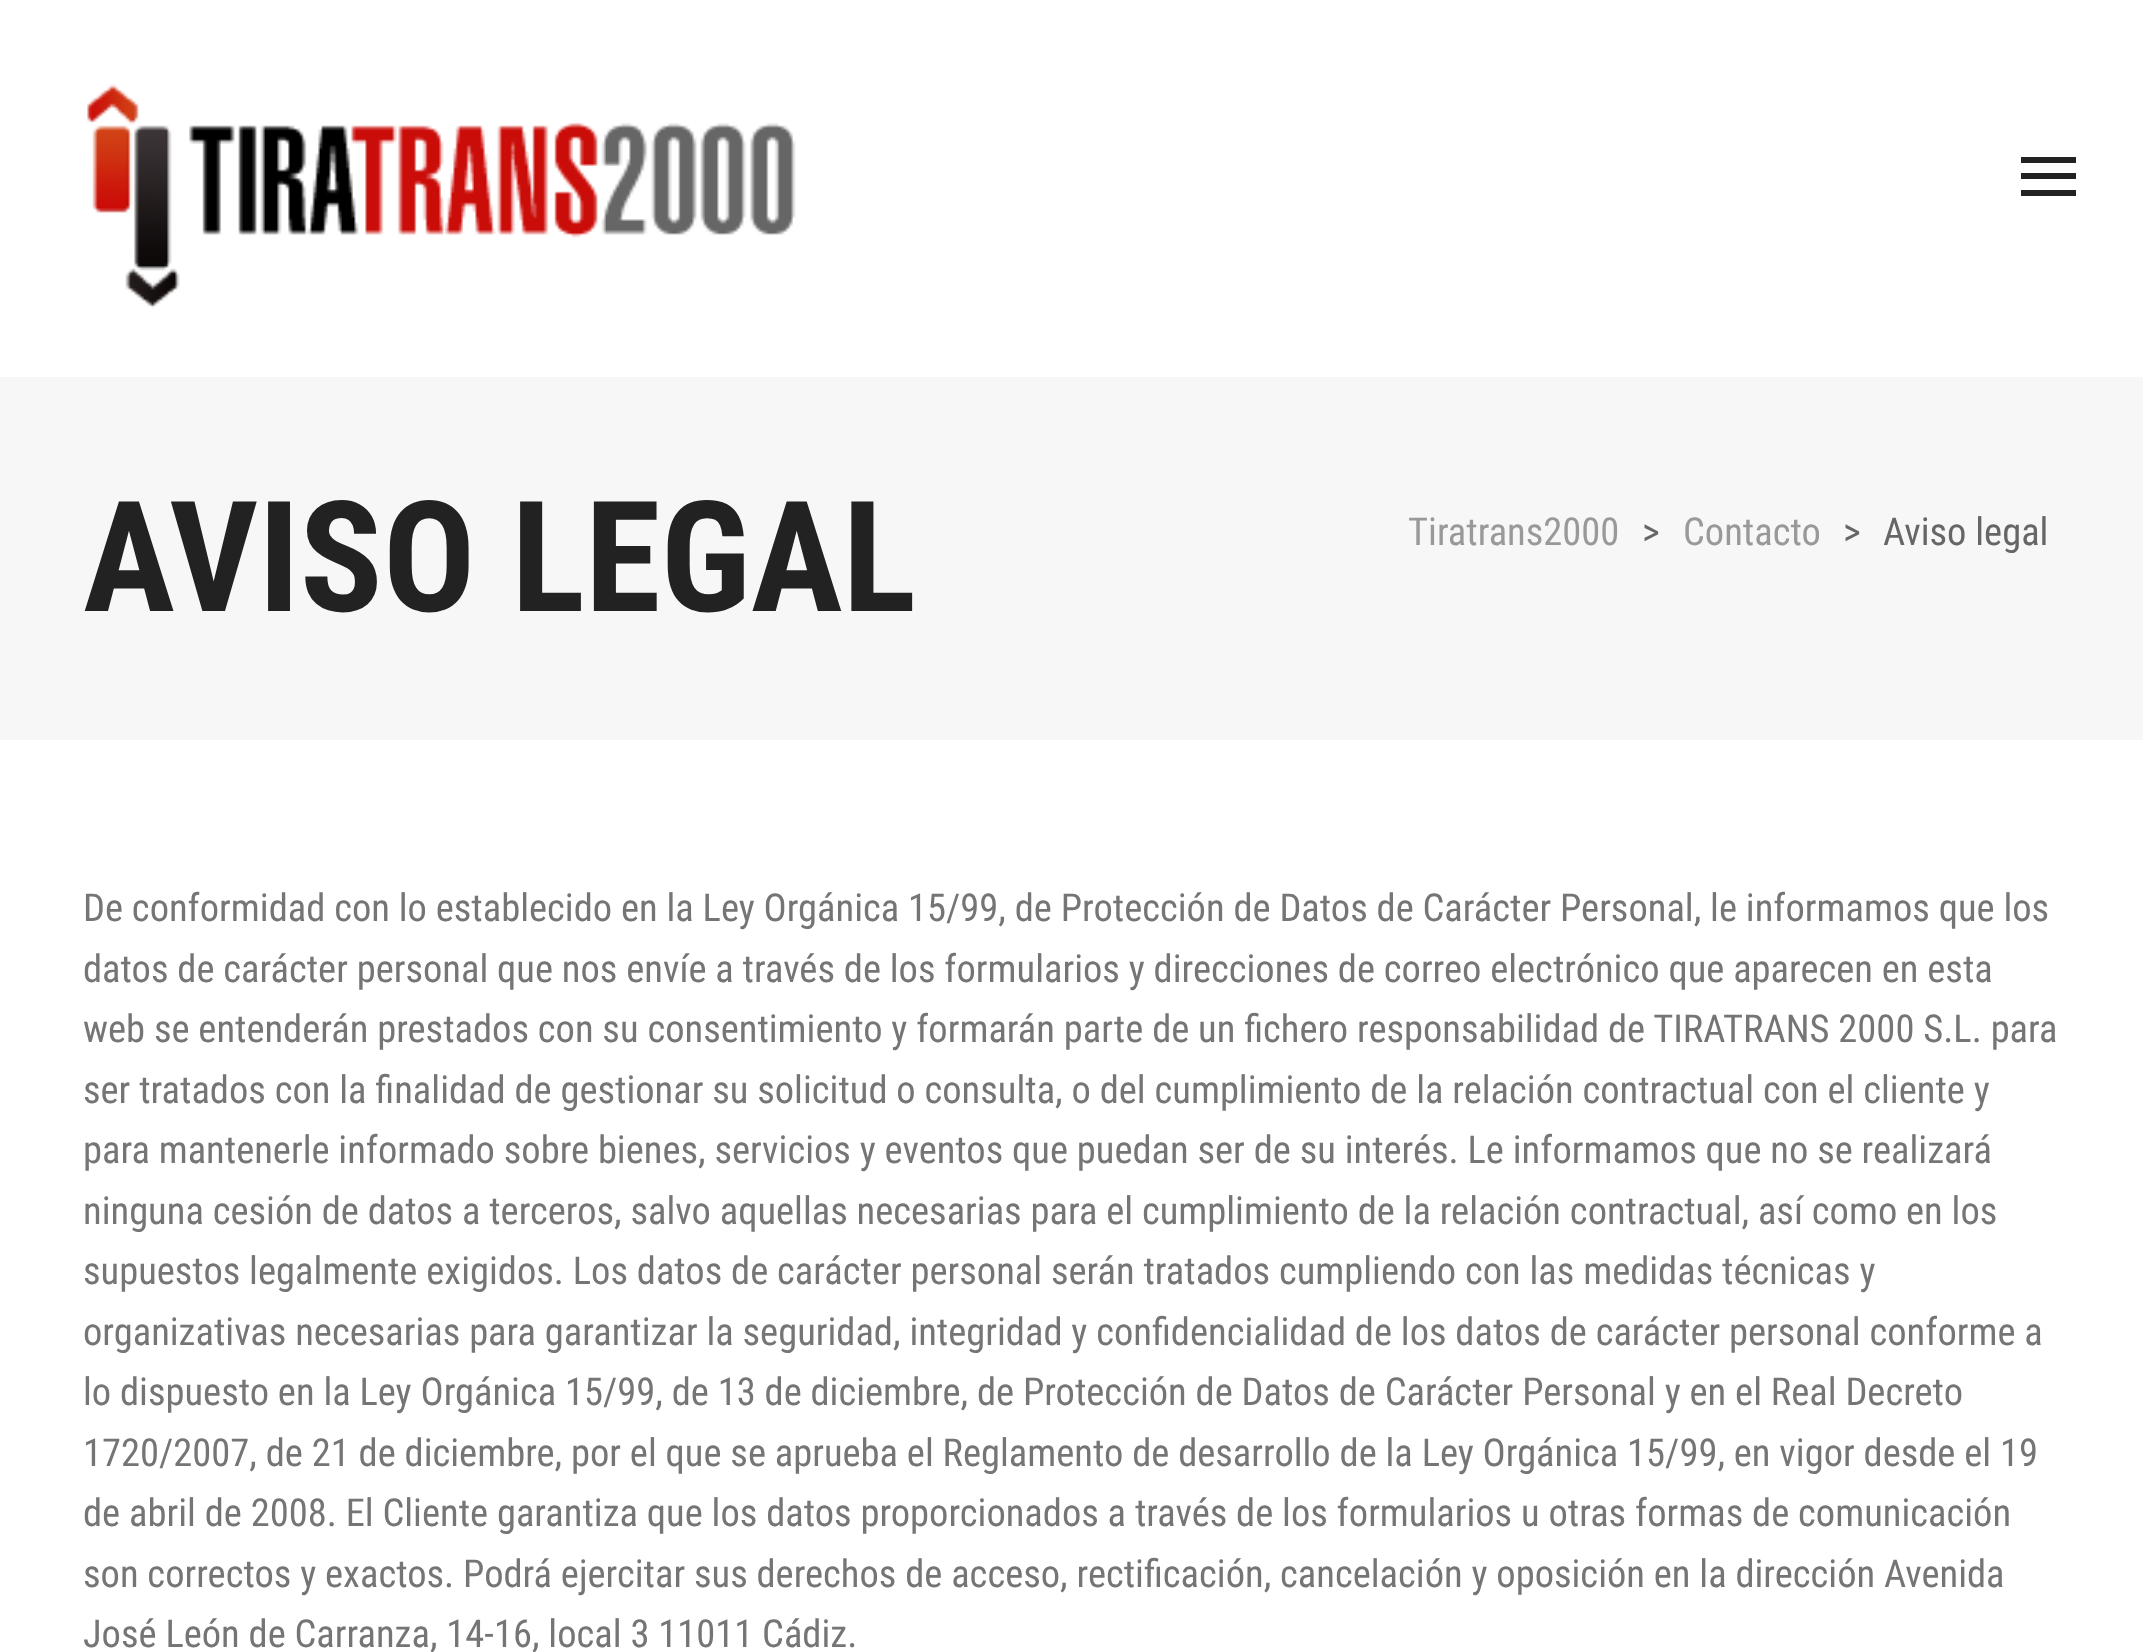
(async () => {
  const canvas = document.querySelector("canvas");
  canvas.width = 2143;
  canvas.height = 1652;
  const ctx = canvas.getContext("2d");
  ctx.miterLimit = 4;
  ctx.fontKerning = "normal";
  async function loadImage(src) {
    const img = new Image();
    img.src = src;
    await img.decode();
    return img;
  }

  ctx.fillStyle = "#ffffff";
  ctx.fillRect(0, 0, 2143, 1652);
  ctx.drawImage(await loadImage("img/1.png"), 87, 84, 709, 225);
  for (const [x, y, w, h, color] of [
    [2021, 173, 55, 6, "#222222"],
    [2021, 157, 55, 6, "#222222"],
    [2021, 190, 55, 6, "#222222"],
    [0, 377, 2143, 363, "#f7f7f7"],
  ]) {
    ctx.fillStyle = color;
    ctx.fillRect(x, y, w, h);
  }
  ctx.font = "bold 154px Roboto Condensed";
  ctx.fillStyle = "#222222";
  ctx.fillText("AVISO LEGAL", 83, 611);
  ctx.font = "38.5px Roboto Condensed";
  ctx.fillStyle = "#999999";
  ctx.fillText("Tiratrans2000", 1408, 545);
  ctx.fillStyle = "#666666";
  ctx.fillText(">", 1642, 545);
  ctx.fillStyle = "#999999";
  ctx.fillText("Contacto", 1683, 545);
  ctx.fillStyle = "#666666";
  ctx.fillText(">", 1843, 545);
  ctx.fillText("Aviso legal", 1883, 545);
  ctx.fillStyle = "#757575";
  for (const [text, x, y] of [
    ["De conformidad con lo establecido en la Ley Orgánica 15/99, de Protección de Datos de Carácter Personal, le informamos que los", 83, 921],
    ["datos de carácter personal que nos envíe a través de los formularios y direcciones de correo electrónico que aparecen en esta", 83, 982],
    ["web se entenderán prestados con su consentimiento y formarán parte de un fichero responsabilidad de TIRATRANS 2000 S.L. para", 83, 1042],
    ["ser tratados con la finalidad de gestionar su solicitud o consulta, o del cumplimiento de la relación contractual con el cliente y", 83, 1103],
    ["para mantenerle informado sobre bienes, servicios y eventos que puedan ser de su interés. Le informamos que no se realizará", 83, 1163],
    ["ninguna cesión de datos a terceros, salvo aquellas necesarias para el cumplimiento de la relación contractual, así como en los", 83, 1224],
    ["supuestos legalmente exigidos. Los datos de carácter personal serán tratados cumpliendo con las medidas técnicas y", 83, 1284],
    ["organizativas necesarias para garantizar la seguridad, integridad y confidencialidad de los datos de carácter personal conforme a", 83, 1345],
    ["lo dispuesto en la Ley Orgánica 15/99, de 13 de diciembre, de Protección de Datos de Carácter Personal y en el Real Decreto", 83, 1405],
    ["1720/2007, de 21 de diciembre, por el que se aprueba el Reglamento de desarrollo de la Ley Orgánica 15/99, en vigor desde el 19", 83, 1466],
    ["de abril de 2008. El Cliente garantiza que los datos proporcionados a través de los formularios u otras formas de comunicación", 83, 1526],
    ["son correctos y exactos. Podrá ejercitar sus derechos de acceso, rectificación, cancelación y oposición en la dirección Avenida", 83, 1587],
    ["José León de Carranza, 14-16, local 3 11011 Cádiz.", 83, 1647],
  ]) {
    ctx.fillText(text, x, y);
  }
})();
